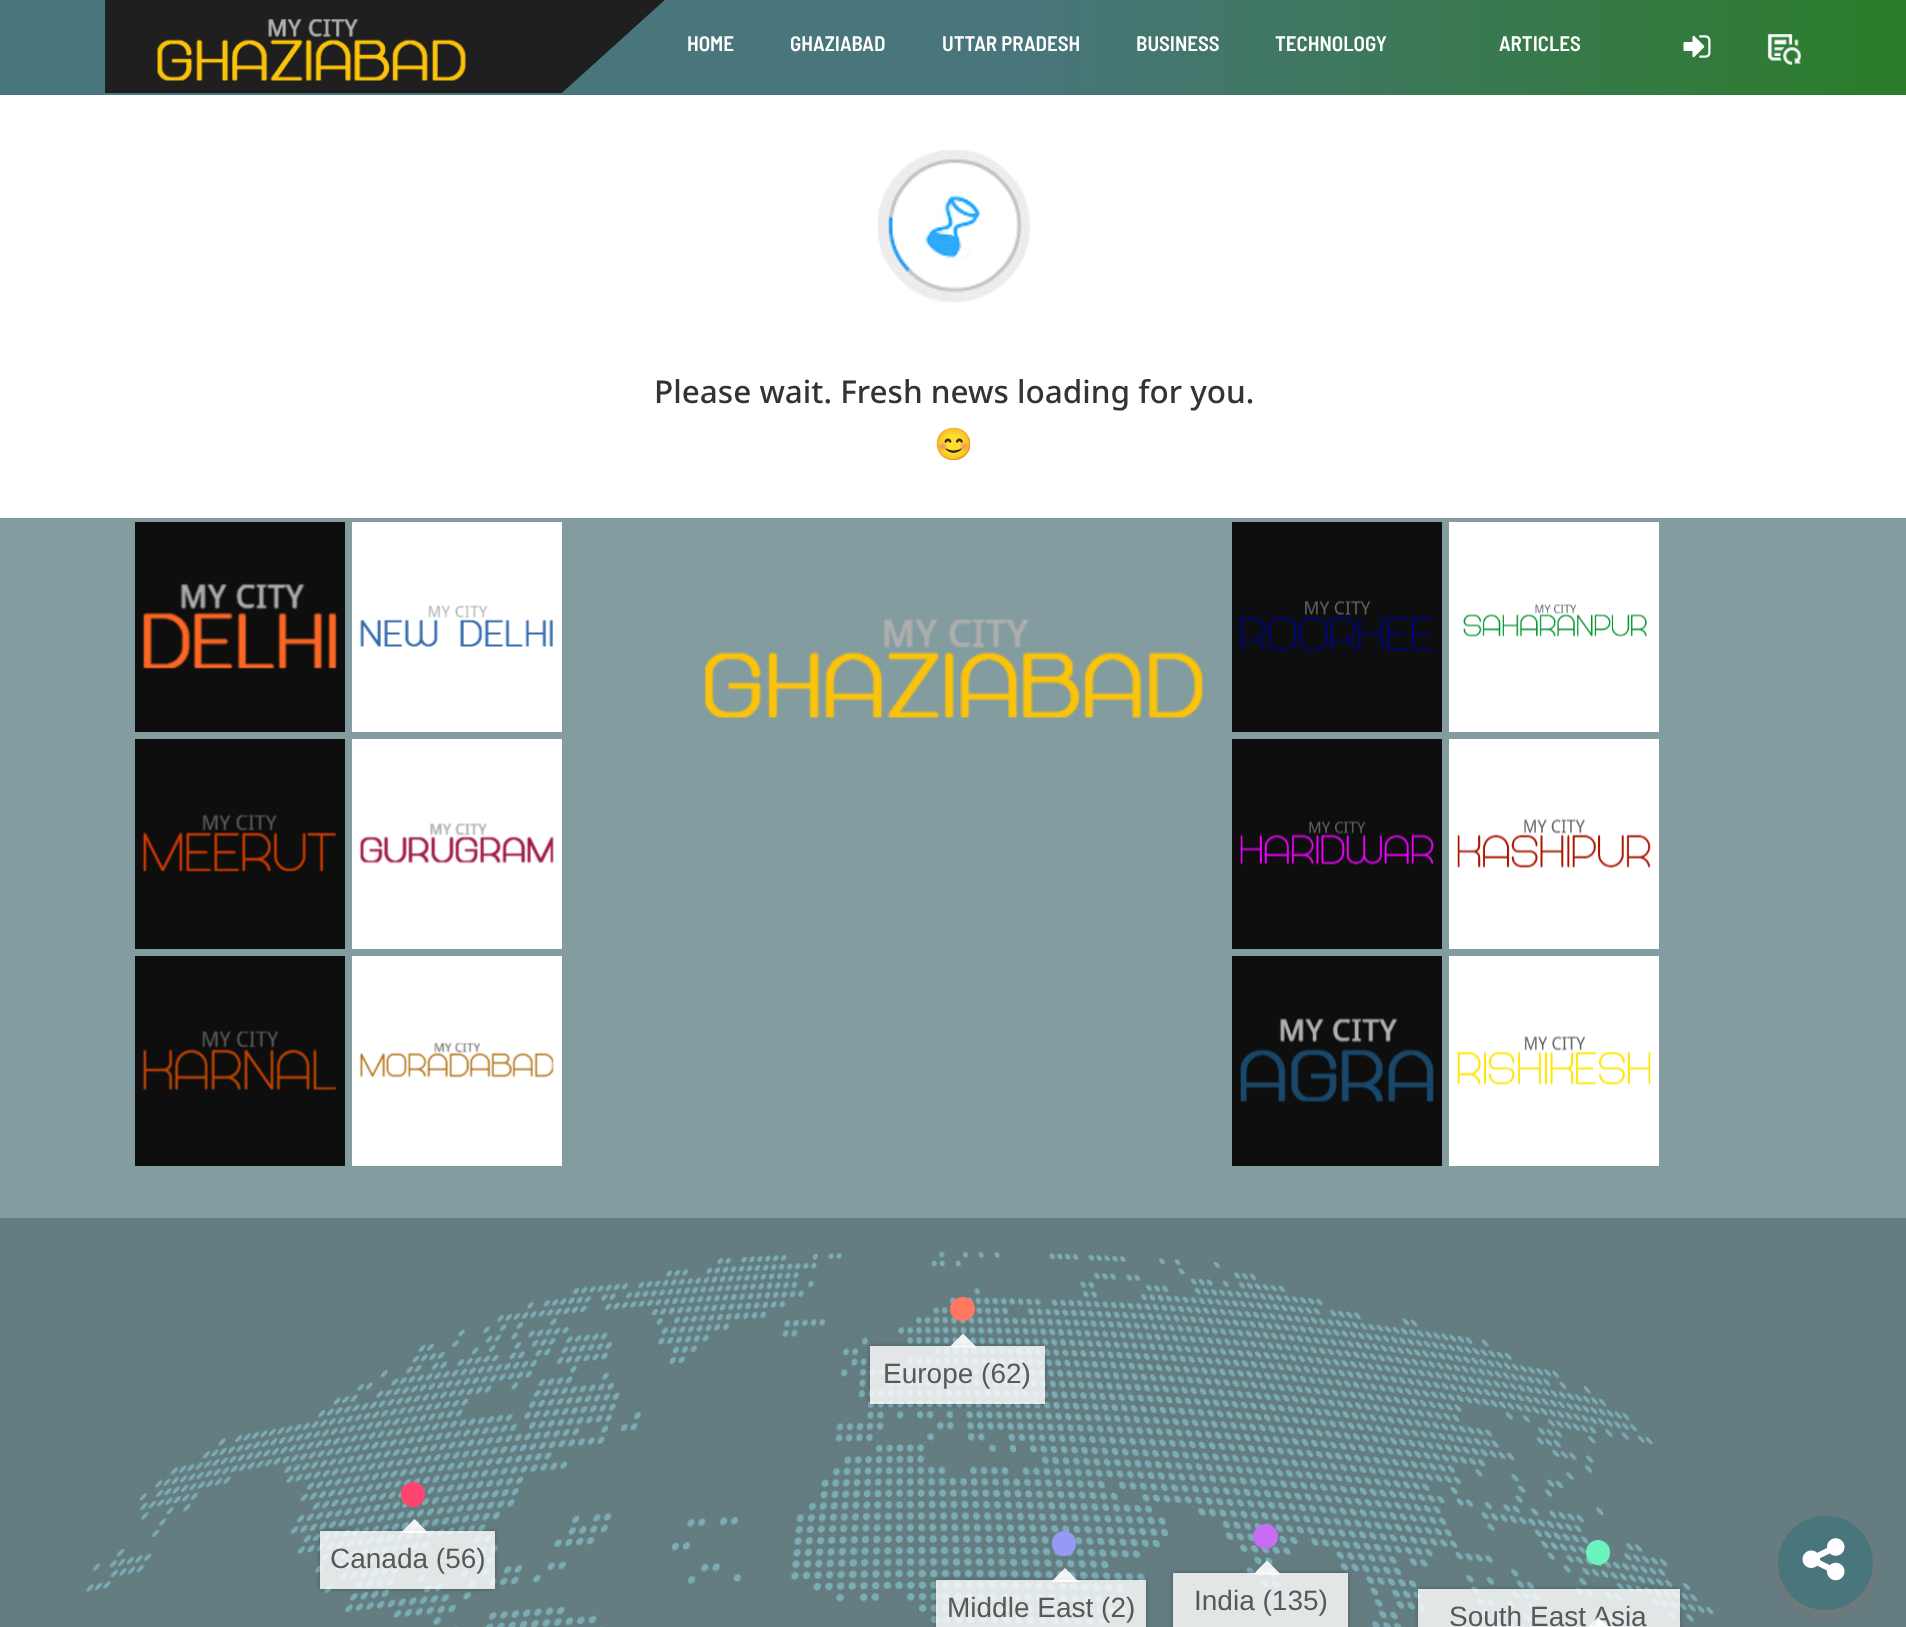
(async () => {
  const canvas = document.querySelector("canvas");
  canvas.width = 1906;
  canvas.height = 1627;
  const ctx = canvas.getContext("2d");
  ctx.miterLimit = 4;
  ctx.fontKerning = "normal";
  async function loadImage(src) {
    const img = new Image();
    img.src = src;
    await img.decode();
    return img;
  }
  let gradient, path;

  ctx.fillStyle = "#ffffff";
  ctx.fillRect(0, 0, 1906, 1627);
  gradient = ctx.createLinearGradient(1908, 47, 105, 47);
  gradient.addColorStop(0, "#2b7c29");
  gradient.addColorStop(0.5, "#49757d");
  gradient.addColorStop(1, "#49757d");
  ctx.fillStyle = gradient;
  ctx.fillRect(105, 0, 1801, 95);
  ctx.fillStyle = "#49757d";
  ctx.fillRect(0, 0, 105, 95);
  ctx.fillStyle = "#1f1f1f";
  path = new Path2D("M105 0H665L562 93H105Z");
  ctx.fill(path);
  ctx.fillStyle = "#49757d";
  path = new Path2D("M665 0V93H562Z");
  ctx.fill(path);
  ctx.drawImage(await loadImage("img/1.png"), 157, 19, 309, 62);
  ctx.drawImage(await loadImage("img/2.png"), 1683, 35, 28, 23);
  ctx.drawImage(await loadImage("img/3.png"), 1767, 34, 34, 31);
  ctx.drawImage(await loadImage("img/4.png"), 877, 149, 154, 155);
  ctx.fillStyle = "#839ca0";
  ctx.fillRect(0, 518, 1906, 700);
  ctx.fillStyle = "#0e0e0e";
  ctx.fillRect(135, 522, 210, 210);
  ctx.drawImage(await loadImage("img/5.png"), 142, 583, 195, 86);
  ctx.fillStyle = "#ffffff";
  ctx.fillRect(352, 522, 210, 210);
  ctx.drawImage(await loadImage("img/6.png"), 359, 605, 195, 42);
  ctx.fillStyle = "#0e0e0e";
  ctx.fillRect(135, 739, 210, 210);
  ctx.drawImage(await loadImage("img/7.png"), 142, 814, 195, 58);
  ctx.fillStyle = "#ffffff";
  ctx.fillRect(352, 739, 210, 210);
  ctx.drawImage(await loadImage("img/8.png"), 359, 823, 195, 41);
  ctx.fillStyle = "#0e0e0e";
  ctx.fillRect(135, 956, 210, 210);
  ctx.drawImage(await loadImage("img/9.png"), 142, 1030, 195, 61);
  ctx.fillStyle = "#ffffff";
  ctx.fillRect(352, 956, 210, 210);
  ctx.drawImage(await loadImage("img/10.png"), 359, 1042, 195, 36);
  ctx.drawImage(await loadImage("img/11.png"), 705, 619, 498, 99);
  ctx.fillStyle = "#0e0e0e";
  ctx.fillRect(1232, 522, 210, 210);
  ctx.drawImage(await loadImage("img/12.png"), 1240, 600, 194, 51);
  ctx.fillStyle = "#ffffff";
  ctx.fillRect(1449, 522, 210, 210);
  ctx.drawImage(await loadImage("img/13.png"), 1463, 604, 184, 33);
  ctx.fillStyle = "#0e0e0e";
  ctx.fillRect(1232, 739, 210, 210);
  ctx.drawImage(await loadImage("img/14.png"), 1240, 821, 194, 44);
  ctx.fillStyle = "#ffffff";
  ctx.fillRect(1449, 739, 210, 210);
  ctx.drawImage(await loadImage("img/15.png"), 1457, 818, 194, 50);
  ctx.fillStyle = "#0e0e0e";
  ctx.fillRect(1232, 956, 210, 210);
  ctx.drawImage(await loadImage("img/16.png"), 1240, 1018, 194, 84);
  ctx.fillStyle = "#ffffff";
  ctx.fillRect(1449, 956, 210, 210);
  ctx.drawImage(await loadImage("img/17.png"), 1457, 1035, 194, 50);
  ctx.drawImage(await loadImage("img/18.png"), 0, 1218, 1906, 409);
  ctx.fillStyle = "#ff7761";
  ctx.beginPath();
  ctx.roundRect(950, 1297, 25, 24, 12);
  ctx.fill();
  ctx.save();
  path = new Path2D("M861 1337H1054V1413H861ZM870 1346H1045V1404H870Z");
  ctx.clip(path, "evenodd");
  ctx.fillStyle = "rgba(0, 0, 0, 0.27)";
  ctx.filter = "blur(2.5px)";
  ctx.beginPath();
  ctx.rect(870, 1346, 175, 58);
  ctx.fill();
  ctx.filter = "none";
  ctx.restore();
  ctx.fillStyle = "rgba(255, 255, 255, 0.81)";
  ctx.fillRect(870, 1346, 175, 58);
  ctx.fillStyle = "rgba(255, 255, 255, 0.9)";
  path = new Path2D("M977 1347.5H949L963 1333.5Z");
  ctx.fill(path);
  ctx.fillStyle = "#ff456f";
  ctx.beginPath();
  ctx.roundRect(401, 1482, 24, 25, 12);
  ctx.fill();
  ctx.save();
  path = new Path2D("M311 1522H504V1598H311ZM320 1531H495V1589H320Z");
  ctx.clip(path, "evenodd");
  ctx.fillStyle = "rgba(0, 0, 0, 0.27)";
  ctx.filter = "blur(2.5px)";
  ctx.beginPath();
  ctx.rect(320, 1531, 175, 58);
  ctx.fill();
  ctx.filter = "none";
  ctx.restore();
  ctx.fillStyle = "rgba(255, 255, 255, 0.81)";
  ctx.fillRect(320, 1531, 175, 58);
  ctx.fillStyle = "rgba(255, 255, 255, 0.9)";
  path = new Path2D("M428.5 1533H400.5L414.5 1519Z");
  ctx.fill(path);
  ctx.fillStyle = "#969af6";
  ctx.beginPath();
  ctx.roundRect(1052, 1531, 24, 25, 12);
  ctx.fill();
  ctx.save();
  path = new Path2D("M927 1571H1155V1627H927ZM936 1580H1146V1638H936Z");
  ctx.clip(path, "evenodd");
  ctx.fillStyle = "rgba(0, 0, 0, 0.27)";
  ctx.filter = "blur(2.5px)";
  ctx.beginPath();
  ctx.rect(936, 1580, 210, 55);
  ctx.fill();
  ctx.filter = "none";
  ctx.restore();
  ctx.fillStyle = "rgba(255, 255, 255, 0.81)";
  ctx.fillRect(936, 1580, 210, 47);
  ctx.fillStyle = "rgba(255, 255, 255, 0.9)";
  path = new Path2D("M1079 1582H1051L1065 1568Z");
  ctx.fill(path);
  ctx.fillStyle = "#c96cf4";
  ctx.beginPath();
  ctx.arc(1265.5, 1536.5, 12.5, 0, Math.PI * 2);
  ctx.fill();
  ctx.save();
  path = new Path2D("M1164 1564H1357V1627H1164ZM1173 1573H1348V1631H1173Z");
  ctx.clip(path, "evenodd");
  ctx.fillStyle = "rgba(0, 0, 0, 0.27)";
  ctx.filter = "blur(2.5px)";
  ctx.beginPath();
  ctx.rect(1173, 1573, 175, 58);
  ctx.fill();
  ctx.filter = "none";
  ctx.restore();
  ctx.fillStyle = "rgba(255, 255, 255, 0.81)";
  ctx.fillRect(1173, 1573, 175, 54);
  ctx.fillStyle = "rgba(255, 255, 255, 0.9)";
  path = new Path2D("M1281 1574.5H1253L1267 1560.5Z");
  ctx.fill(path);
  ctx.fillStyle = "#6cf4be";
  ctx.beginPath();
  ctx.roundRect(1586, 1540, 24, 25, 12);
  ctx.fill();
  ctx.save();
  path = new Path2D("M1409 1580H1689V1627H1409ZM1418 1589H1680V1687H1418Z");
  ctx.clip(path, "evenodd");
  ctx.fillStyle = "rgba(0, 0, 0, 0.27)";
  ctx.filter = "blur(2.5px)";
  ctx.beginPath();
  ctx.rect(1418, 1589, 262, 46);
  ctx.fill();
  ctx.filter = "none";
  ctx.restore();
  ctx.fillStyle = "rgba(255, 255, 255, 0.81)";
  ctx.fillRect(1418, 1589, 262, 38);
  ctx.fillStyle = "#777777";
  ctx.filter = "blur(6px)";
  ctx.beginPath();
  ctx.roundRect(1778, 1521, 95, 94, 47);
  ctx.fill();
  ctx.filter = "none";
  ctx.fillStyle = "#49757d";
  ctx.beginPath();
  ctx.roundRect(1778, 1516, 95, 94, 47);
  ctx.fill();
  ctx.drawImage(await loadImage("img/19.png"), 1802, 1538, 43, 43);
  ctx.font = "600 21px Barlow Semi Condensed";
  ctx.fillStyle = "#ffffff";
  for (const [text, x, y] of [
    ["HOME", 687, 51],
    ["GHAZIABAD", 790, 51],
    ["UTTAR PRADESH", 942, 51],
    ["BUSINESS", 1136, 51],
    ["TECHNOLOGY", 1275, 51],
    ["ARTICLES", 1499, 51],
  ]) {
    ctx.fillText(text, x, y);
  }
  ctx.font = "500 31.5px Noto Sans";
  ctx.fillStyle = "#333333";
  ctx.fillText("Please wait. Fresh news loading for you.", 654, 403);
  ctx.font = "31.5px Noto Color Emoji";
  ctx.fillText("😊", 934, 455);
  ctx.font = "28px Liberation Sans";
  ctx.fillStyle = "#575858";
  for (const [text, x, y] of [
    ["Europe (62)", 883, 1383],
    ["Canada (56)", 330, 1568],
    ["Middle East (2)", 947, 1617],
    ["India (135)", 1194, 1610],
    ["South East Asia", 1449, 1626],
  ]) {
    ctx.fillText(text, x, y);
  }
  ctx.fillStyle = "rgba(255, 255, 255, 0.9)";
  path = new Path2D("M1612 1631H1584L1598 1617Z");
  ctx.fill(path);
})();
